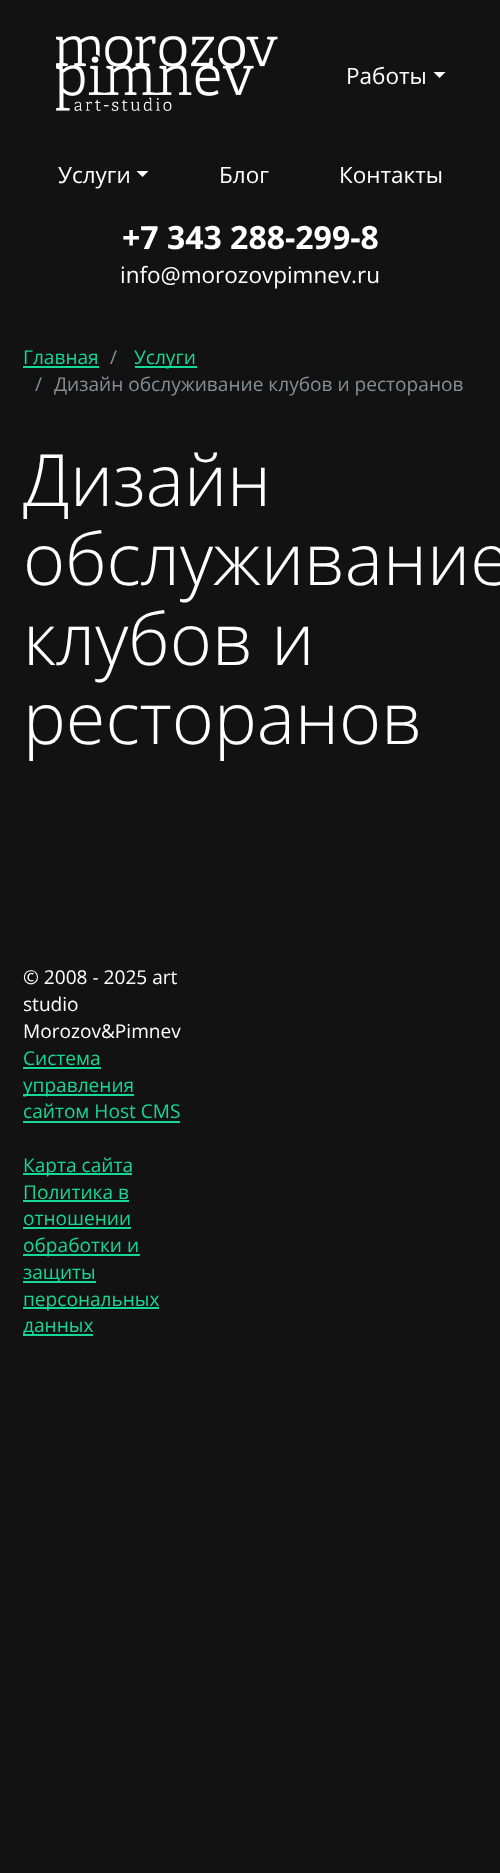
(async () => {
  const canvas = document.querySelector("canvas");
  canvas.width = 500;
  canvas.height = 1873;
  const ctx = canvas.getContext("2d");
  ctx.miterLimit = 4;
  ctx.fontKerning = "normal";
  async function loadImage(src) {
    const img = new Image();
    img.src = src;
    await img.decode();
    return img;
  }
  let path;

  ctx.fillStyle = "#121212";
  ctx.fillRect(0, 0, 500, 1873);
  ctx.drawImage(await loadImage("img/1.png"), 56, 36, 222, 75);
  ctx.fillStyle = "#ffffff";
  path = new Path2D("M433.5 72H445.5L439.5 78Z");
  ctx.fill(path);
  path = new Path2D("M136.5 171H148.5L142.5 177Z");
  ctx.fill(path);
  for (const [x, y, w, h, color] of [
    [23, 366, 76, 2, "#16d796"],
    [135, 366, 62, 2, "#16d796"],
    [23, 1067, 78, 2, "#16d796"],
    [23, 1094, 111, 2, "#16d796"],
    [23, 1121, 157, 2, "#16d796"],
    [23, 1173, 109, 2, "#16d796"],
    [23, 1200, 106, 2, "#16d796"],
    [23, 1227, 108, 2, "#16d796"],
    [23, 1254, 117, 2, "#16d796"],
    [23, 1281, 73, 2, "#16d796"],
    [23, 1307, 136, 2, "#16d796"],
    [23, 1334, 70, 2, "#16d796"],
  ]) {
    ctx.fillStyle = color;
    ctx.fillRect(x, y, w, h);
  }
  ctx.font = "22.5px Open Sans";
  ctx.fillStyle = "#ffffff";
  for (const [text, x, y] of [
    ["Работы", 346, 84],
    ["Услуги", 58, 183],
    ["Блог", 219, 183],
    ["Контакты", 339, 183],
  ]) {
    ctx.fillText(text, x, y);
  }
  ctx.font = "bold 32px Open Sans";
  ctx.fillText("+7 343 288-299-8", 122, 249);
  ctx.font = "22.5px Open Sans";
  ctx.fillText("info@morozovpimnev.ru", 120, 283);
  ctx.font = "19.1px Open Sans";
  ctx.fillStyle = "#16d796";
  ctx.fillText("Главная", 23, 364);
  ctx.fillStyle = "#868e96";
  ctx.fillText("/", 110, 364);
  ctx.fillStyle = "#16d796";
  ctx.fillText("Услуги", 134, 364);
  ctx.fillStyle = "#868e96";
  ctx.fillText("/", 35, 391);
  ctx.fillText("Дизайн обслуживание клубов и ресторанов", 54, 391);
  ctx.font = "300 72px Open Sans";
  ctx.fillStyle = "#ffffff";
  for (const [text, x, y] of [
    ["Дизайн", 23, 506],
    ["обслуживание", 23, 585],
    ["клубов и", 23, 665],
    ["ресторанов", 23, 744],
  ]) {
    ctx.fillText(text, x, y);
  }
  ctx.font = "19.1px Open Sans";
  for (const [text, x, y] of [
    ["© 2008 - 2025 art", 23, 984],
    ["studio", 23, 1011],
    ["Morozov&Pimnev", 23, 1038],
  ]) {
    ctx.fillText(text, x, y);
  }
  ctx.fillStyle = "#16d796";
  for (const [text, x, y] of [
    ["Система", 23, 1065],
    ["управления", 23, 1092],
    ["сайтом Host CMS", 23, 1118],
    ["Карта сайта", 23, 1172],
    ["Политика в", 23, 1199],
    ["отношении", 23, 1225],
    ["обработки и", 23, 1252],
    ["защиты", 23, 1279],
    ["персональных", 23, 1306],
    ["данных", 23, 1332],
  ]) {
    ctx.fillText(text, x, y);
  }
})();
